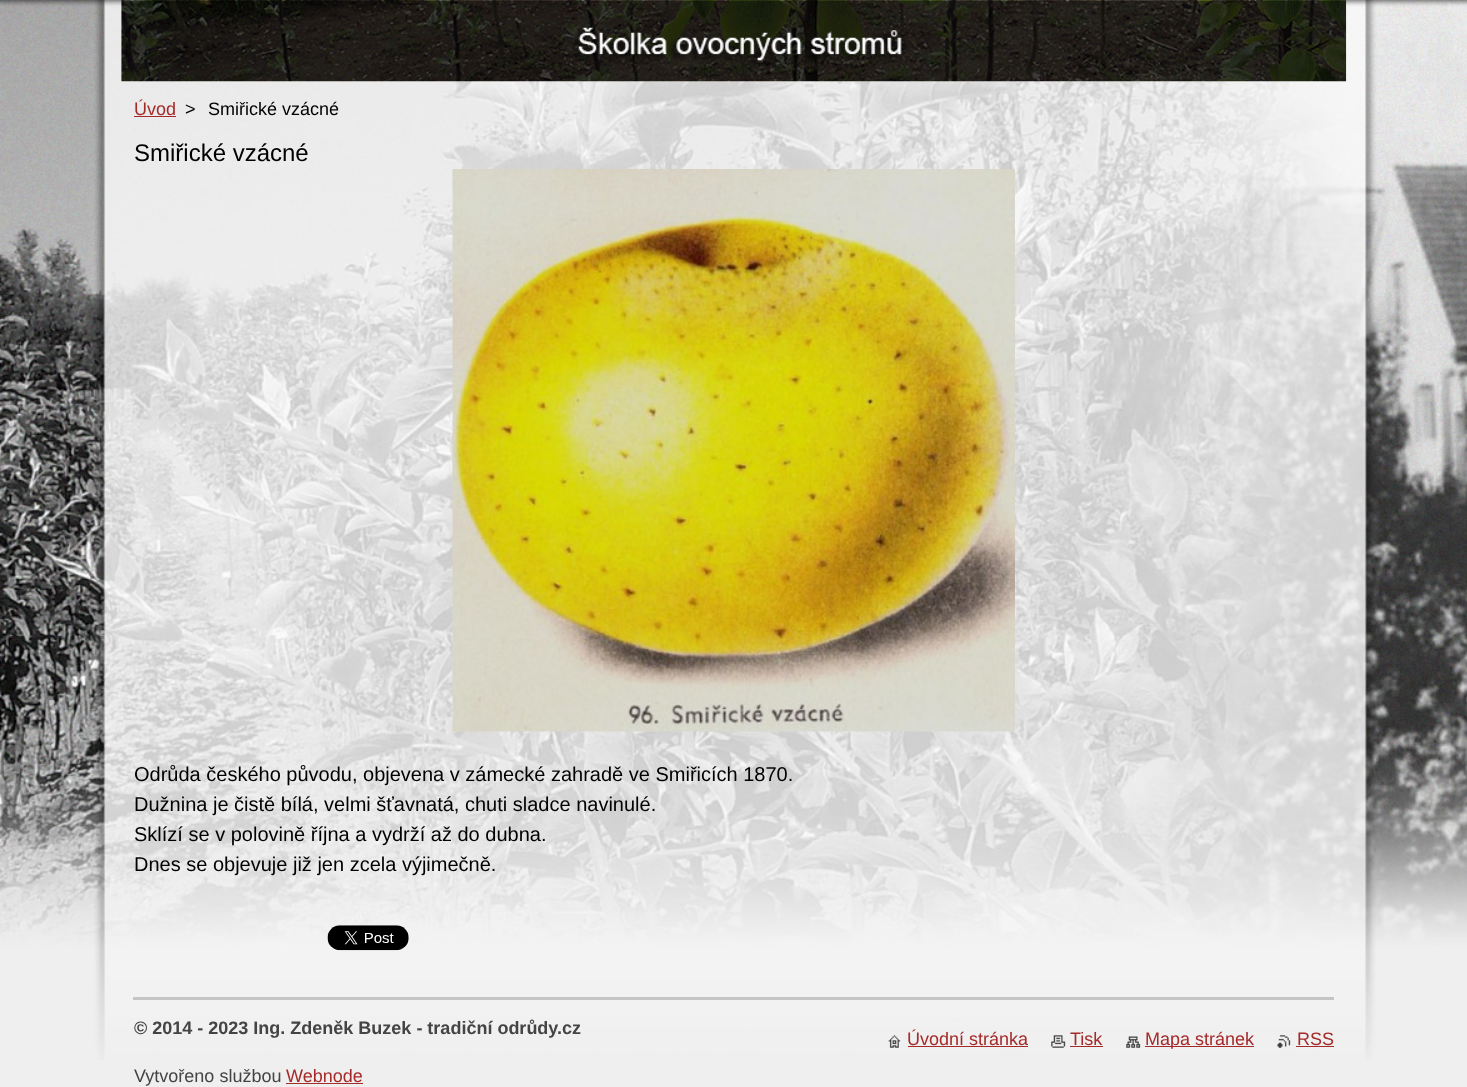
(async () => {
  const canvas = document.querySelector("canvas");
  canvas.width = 1467;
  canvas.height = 1087;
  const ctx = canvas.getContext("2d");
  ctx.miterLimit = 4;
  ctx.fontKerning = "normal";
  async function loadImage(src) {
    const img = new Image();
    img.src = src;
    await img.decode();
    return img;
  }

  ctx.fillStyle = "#efefef";
  ctx.fillRect(0, 0, 1467, 1087);
  ctx.drawImage(await loadImage("img/1.png"), 0, 0, 1467, 1060);
  ctx.drawImage(await loadImage("img/2.png"), 121, 0, 1226, 82);
  ctx.fillStyle = "#a52a2a";
  ctx.fillRect(134, 116, 42, 1);
  ctx.drawImage(await loadImage("img/3.png"), 452, 169, 563, 563);
  ctx.drawImage(await loadImage("img/4.png"), 327, 925, 82, 26);
  ctx.fillStyle = "#c6c5c5";
  ctx.fillRect(133, 997, 1201, 3);
  ctx.fillStyle = "#a52a2a";
  ctx.fillRect(286, 1083, 77, 1);
  ctx.drawImage(await loadImage("img/5.png"), 888, 1035, 13, 13);
  ctx.fillRect(908, 1046, 120, 1);
  ctx.drawImage(await loadImage("img/6.png"), 1051, 1035, 15, 13);
  ctx.fillRect(1070, 1046, 33, 1);
  ctx.drawImage(await loadImage("img/7.png"), 1126, 1036, 15, 12);
  ctx.fillRect(1145, 1046, 109, 1);
  ctx.drawImage(await loadImage("img/8.png"), 1277, 1035, 14, 13);
  ctx.fillRect(1296, 1046, 38, 1);
  ctx.font = "18px Liberation Sans";
  ctx.fillText("Úvod", 134, 115);
  ctx.fillStyle = "#000000";
  ctx.fillText(">", 185, 115);
  ctx.fillText("Smiřické vzácné", 208, 115);
  ctx.font = "24px Liberation Sans";
  ctx.fillText("Smiřické vzácné", 134, 161);
  ctx.font = "20px Liberation Sans";
  for (const [text, x, y] of [
    ["Odrůda českého původu, objevena v zámecké zahradě ve Smiřicích 1870.", 134, 781],
    ["Dužnina je čistě bílá, velmi šťavnatá, chuti sladce navinulé.", 134, 811],
    ["Sklízí se v polovině října a vydrží až do dubna.", 134, 841],
    ["Dnes se objevuje již jen zcela výjimečně.", 134, 871],
  ]) {
    ctx.fillText(text, x, y);
  }
  ctx.font = "bold 18px Liberation Sans";
  ctx.fillStyle = "#444444";
  ctx.fillText("© 2014 - 2023 Ing. Zdeněk Buzek - tradiční odrůdy.cz", 134, 1034);
  ctx.font = "18px Liberation Sans";
  ctx.fillText("Vytvořeno službou", 134, 1082);
  ctx.fillStyle = "#a52a2a";
  for (const [text, x, y] of [
    ["Webnode", 286, 1082],
    ["Úvodní stránka", 907, 1045],
    ["Tisk", 1070, 1045],
    ["Mapa stránek", 1145, 1045],
    ["RSS", 1297, 1045],
  ]) {
    ctx.fillText(text, x, y);
  }
})();
